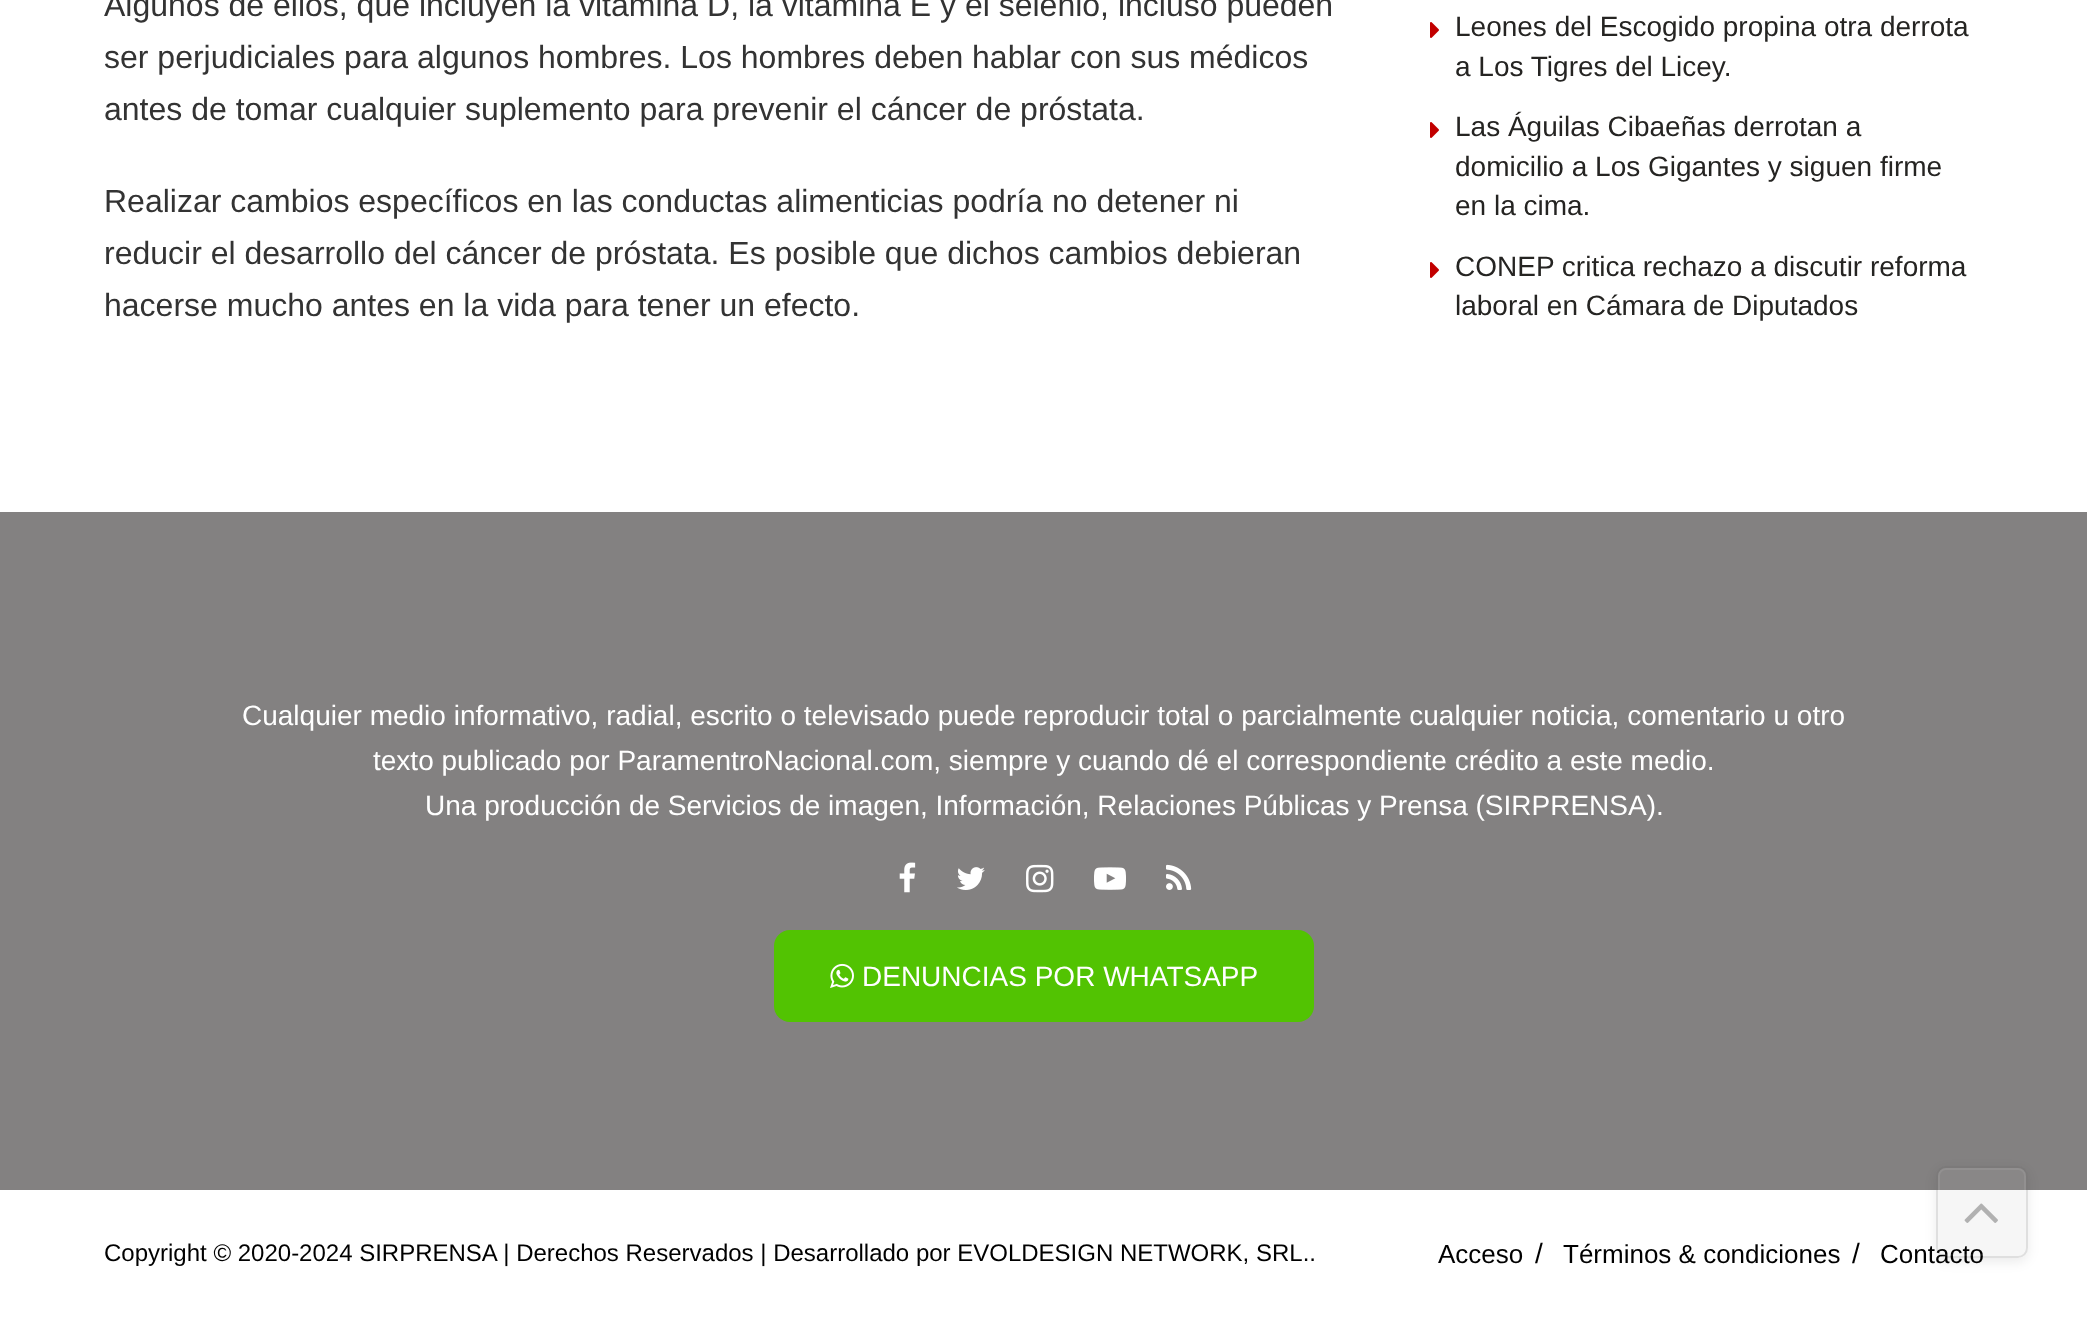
(async () => {
  const canvas = document.querySelector("canvas");
  canvas.width = 2087;
  canvas.height = 1318;
  const ctx = canvas.getContext("2d");
  ctx.miterLimit = 4;
  ctx.fontKerning = "normal";
  async function loadImage(src) {
    const img = new Image();
    img.src = src;
    await img.decode();
    return img;
  }
  let path;

  ctx.fillStyle = "#ffffff";
  ctx.fillRect(0, 0, 2087, 1318);
  ctx.drawImage(await loadImage("img/1.png"), 1430, 22, 9, 16);
  ctx.drawImage(await loadImage("img/1.png"), 1430, 122, 9, 16);
  ctx.drawImage(await loadImage("img/1.png"), 1430, 262, 9, 16);
  ctx.fillStyle = "#838181";
  ctx.fillRect(0, 512, 2087, 678);
  ctx.drawImage(await loadImage("img/2.png"), 899, 862, 17, 31);
  ctx.drawImage(await loadImage("img/3.png"), 957, 867, 28, 23);
  ctx.drawImage(await loadImage("img/4.png"), 1026, 864, 28, 29);
  ctx.drawImage(await loadImage("img/5.png"), 1094, 867, 32, 23);
  ctx.drawImage(await loadImage("img/6.png"), 1166, 864, 26, 26);
  ctx.fillStyle = "#52c302";
  ctx.beginPath();
  ctx.roundRect(774, 930, 540, 92, 16);
  ctx.fill();
  ctx.drawImage(await loadImage("img/7.png"), 830, 963, 24, 25);
  ctx.save();
  path = new Path2D("M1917 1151H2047V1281H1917ZM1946 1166H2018C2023.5 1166 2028 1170.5 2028 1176V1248C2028 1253.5 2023.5 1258 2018 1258H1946C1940.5 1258 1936 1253.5 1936 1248V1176C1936 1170.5 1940.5 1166 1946 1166Z");
  ctx.clip(path, "evenodd");
  ctx.fillStyle = "rgba(0, 0, 0, 0.08)";
  ctx.filter = "blur(6px)";
  ctx.beginPath();
  ctx.roundRect(1936, 1170, 92, 92, 10);
  ctx.fill();
  ctx.filter = "none";
  ctx.restore();
  ctx.fillStyle = "rgba(181, 181, 181, 0.12)";
  ctx.beginPath();
  ctx.roundRect(1936, 1166, 92, 92, 10);
  ctx.fill();
  ctx.font = "32px Liberation Sans";
  ctx.fillStyle = "#333333";
  for (const [text, x, y] of [
    ["Algunos de ellos, que incluyen la vitamina D, la vitamina E y el selenio, incluso pueden", 104, 16],
    ["ser perjudiciales para algunos hombres. Los hombres deben hablar con sus médicos", 104, 68],
    ["antes de tomar cualquier suplemento para prevenir el cáncer de próstata.", 104, 120],
    ["Realizar cambios específicos en las conductas alimenticias podría no detener ni", 104, 212],
    ["reducir el desarrollo del cáncer de próstata. Es posible que dichos cambios debieran", 104, 264],
    ["hacerse mucho antes en la vida para tener un efecto.", 104, 316],
  ]) {
    ctx.fillText(text, x, y);
  }
  ctx.font = "28px Liberation Sans";
  ctx.fillStyle = "#252422";
  for (const [text, x, y] of [
    ["Leones del Escogido propina otra derrota", 1455, 36],
    ["a Los Tigres del Licey.", 1455, 76],
    ["Las Águilas Cibaeñas derrotan a", 1455, 136],
    ["domicilio a Los Gigantes y siguen firme", 1455, 176],
    ["en la cima.", 1455, 215],
    ["CONEP critica rechazo a discutir reforma", 1455, 276],
    ["laboral en Cámara de Diputados", 1455, 315],
  ]) {
    ctx.fillText(text, x, y);
  }
  ctx.fillStyle = "#ffffff";
  for (const [text, x, y] of [
    ["Cualquier medio informativo, radial, escrito o televisado puede reproducir total o parcialmente cualquier noticia, comentario u otro", 242, 725],
    ["texto publicado por ParamentroNacional.com, siempre y cuando dé el correspondiente crédito a este medio.", 373, 770],
    ["Una producción de Servicios de imagen, Información, Relaciones Públicas y Prensa (SIRPRENSA).", 425, 815],
    ["DENUNCIAS POR WHATSAPP", 862, 986],
  ]) {
    ctx.fillText(text, x, y);
  }
  ctx.font = "24px Liberation Sans";
  ctx.fillStyle = "#000000";
  ctx.fillText("Copyright © 2020-2024 SIRPRENSA | Derechos Reservados | Desarrollado por EVOLDESIGN NETWORK, SRL..", 104, 1261);
  ctx.font = "26px Liberation Sans";
  ctx.fillText("Acceso", 1438, 1263);
  ctx.font = "28px Liberation Sans";
  ctx.fillText("/", 1535, 1263);
  ctx.font = "26px Liberation Sans";
  ctx.fillText("Términos & condiciones", 1563, 1263);
  ctx.font = "28px Liberation Sans";
  ctx.fillText("/", 1852, 1263);
  ctx.font = "26px Liberation Sans";
  ctx.fillText("Contacto", 1880, 1263);
  ctx.beginPath();
  ctx.roundRect(1939, 1169, 86, 86, 7);
  ctx.strokeStyle = "rgba(255, 255, 255, 0.08)";
  ctx.lineWidth = 2;
  ctx.stroke();
  ctx.beginPath();
  ctx.roundRect(1937, 1167, 90, 90, 9);
  ctx.strokeStyle = "rgba(0, 0, 0, 0.09)";
  ctx.stroke();
  ctx.drawImage(await loadImage("img/8.png"), 1964, 1203, 34, 20);
})();
